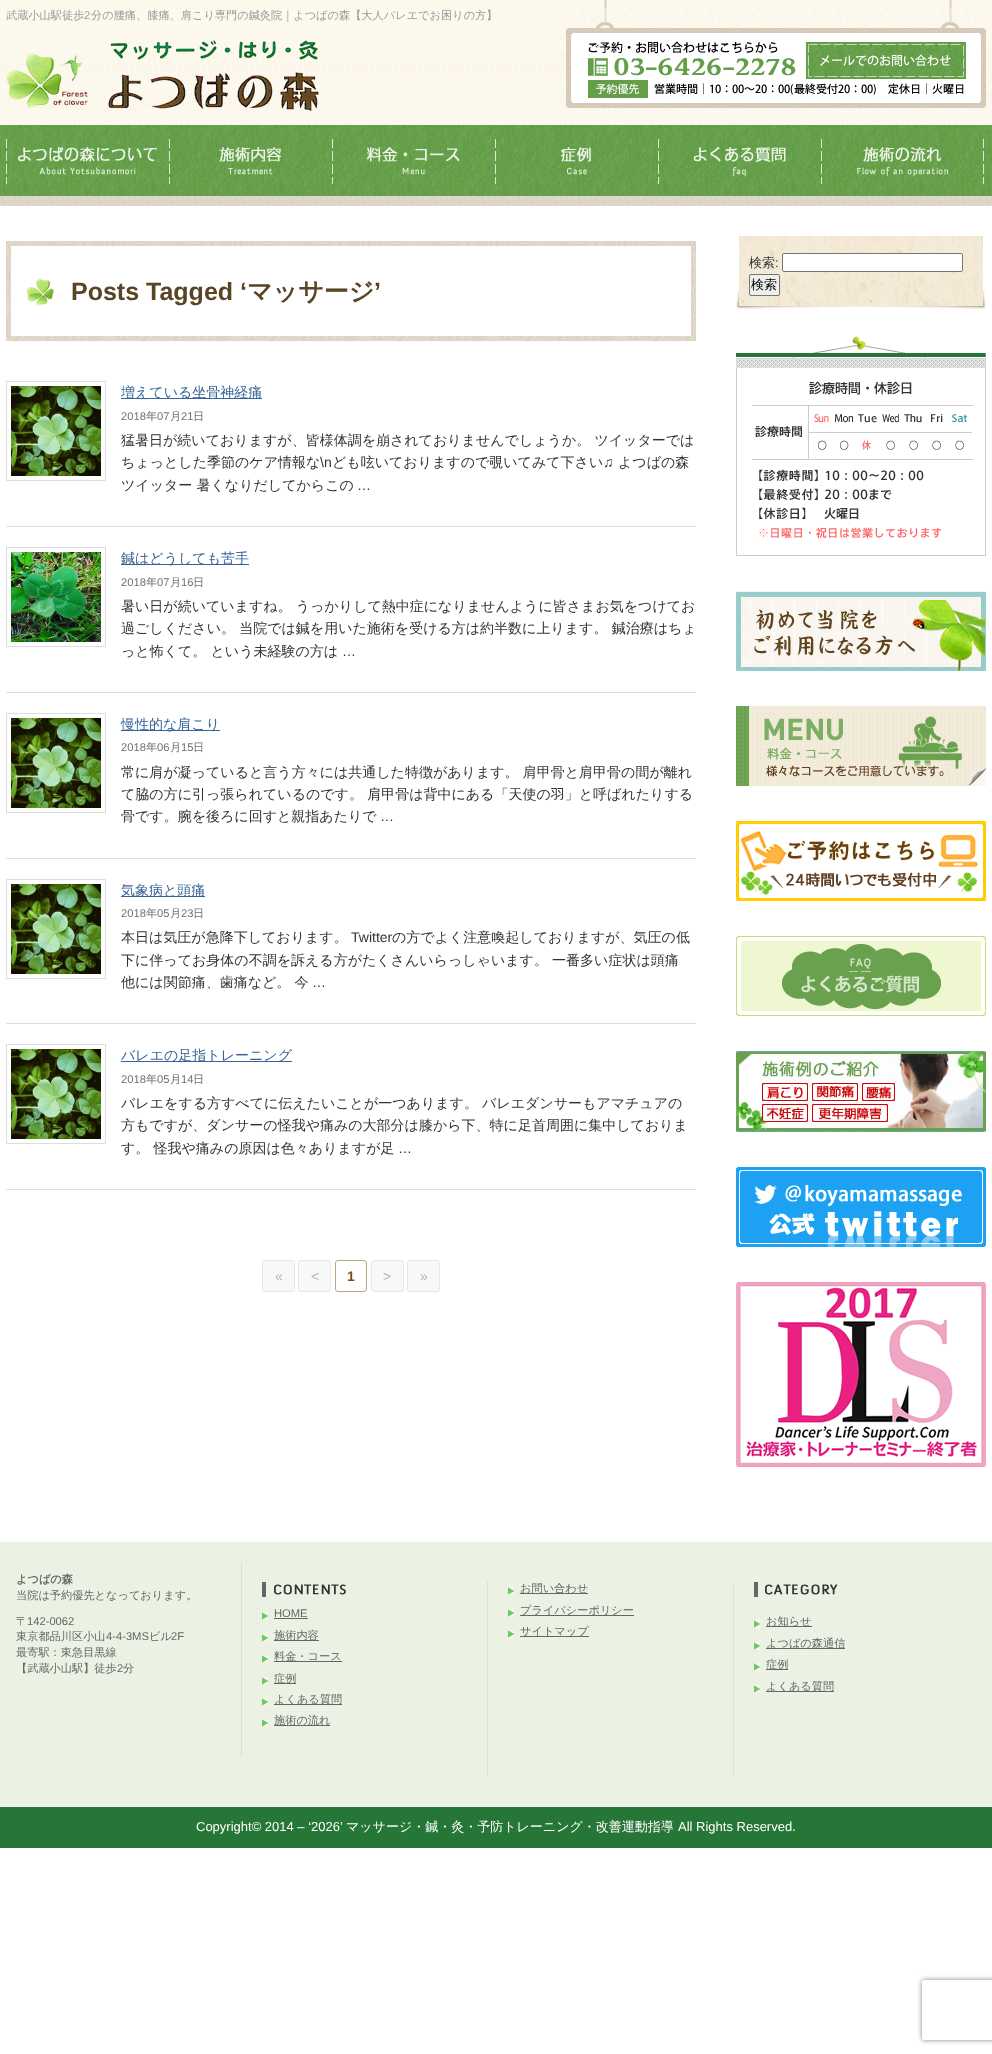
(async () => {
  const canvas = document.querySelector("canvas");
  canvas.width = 992;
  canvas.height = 2054;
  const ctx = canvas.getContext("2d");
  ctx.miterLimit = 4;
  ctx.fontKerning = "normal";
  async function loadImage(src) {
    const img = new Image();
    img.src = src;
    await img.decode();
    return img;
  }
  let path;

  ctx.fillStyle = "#ffffff";
  ctx.fillRect(0, 0, 992, 2054);
  ctx.drawImage(await loadImage("img/1.png"), 0, 0, 992, 206);
  ctx.drawImage(await loadImage("img/2.png"), 566, 0, 420, 108);
  ctx.drawImage(await loadImage("img/3.png"), 806, 42, 160, 37);
  ctx.drawImage(await loadImage("img/4.png"), 6, 40, 313, 71);
  ctx.drawImage(await loadImage("img/5.png"), 6, 125, 163, 71);
  ctx.drawImage(await loadImage("img/6.png"), 169, 125, 163, 71);
  ctx.drawImage(await loadImage("img/7.png"), 332, 125, 163, 71);
  ctx.drawImage(await loadImage("img/8.png"), 495, 125, 163, 71);
  ctx.drawImage(await loadImage("img/9.png"), 658, 125, 163, 71);
  ctx.drawImage(await loadImage("img/10.png"), 821, 125, 163, 71);
  ctx.drawImage(await loadImage("img/11.png"), 736, 291, 250, 18);
  ctx.drawImage(await loadImage("img/12.png"), 739, 236, 244, 70);
  ctx.beginPath();
  ctx.roundRect(782.5, 253.5, 180, 18, 1.5);
  ctx.fill();
  ctx.strokeStyle = "#767676";
  ctx.stroke();
  ctx.fillStyle = "#efefef";
  ctx.beginPath();
  ctx.roundRect(749.5, 274.5, 30, 21, 1.5);
  ctx.fill();
  ctx.stroke();
  ctx.drawImage(await loadImage("img/13.png"), 736, 336, 250, 220);
  ctx.drawImage(await loadImage("img/14.png"), 736, 591, 250, 80);
  ctx.drawImage(await loadImage("img/15.png"), 736, 706, 250, 80);
  ctx.drawImage(await loadImage("img/16.png"), 736, 821, 250, 80);
  ctx.drawImage(await loadImage("img/17.png"), 736, 936, 250, 80);
  ctx.drawImage(await loadImage("img/18.png"), 736, 1051, 250, 81);
  ctx.drawImage(await loadImage("img/19.png"), 736, 1167, 250, 80);
  ctx.drawImage(await loadImage("img/20.png"), 736, 1282, 250, 185);
  ctx.drawImage(await loadImage("img/21.png"), 6, 241, 690, 100);
  ctx.fillStyle = "#dddddd";
  ctx.fillRect(6, 526, 690, 1);
  ctx.strokeStyle = "#dddddd";
  ctx.strokeRect(6.5, 381.5, 99, 99);
  ctx.drawImage(await loadImage("img/22.png"), 11, 386, 90, 90);
  ctx.fillStyle = "#376398";
  ctx.fillRect(121, 398, 141, 1);
  ctx.fillStyle = "#dddddd";
  ctx.fillRect(6, 692, 690, 1);
  ctx.strokeRect(6.5, 547.5, 99, 99);
  ctx.drawImage(await loadImage("img/23.png"), 11, 552, 90, 90);
  ctx.fillStyle = "#376398";
  ctx.fillRect(121, 564, 128, 1);
  ctx.fillStyle = "#dddddd";
  ctx.fillRect(6, 858, 690, 1);
  ctx.strokeRect(6.5, 713.5, 99, 99);
  ctx.drawImage(await loadImage("img/24.png"), 11, 718, 90, 90);
  ctx.fillStyle = "#376398";
  ctx.fillRect(121, 730, 99, 1);
  ctx.fillStyle = "#dddddd";
  ctx.fillRect(6, 1023, 690, 1);
  ctx.strokeRect(6.5, 879.5, 99, 99);
  ctx.drawImage(await loadImage("img/25.png"), 11, 884, 90, 90);
  ctx.fillStyle = "#376398";
  ctx.fillRect(121, 896, 84, 1);
  ctx.fillStyle = "#dddddd";
  ctx.fillRect(6, 1189, 690, 1);
  ctx.strokeRect(6.5, 1044.5, 99, 99);
  ctx.drawImage(await loadImage("img/22.png"), 11, 1049, 90, 90);
  ctx.fillStyle = "#376398";
  ctx.fillRect(121, 1061, 171, 1);
  ctx.fillStyle = "#f8f8f8";
  ctx.beginPath();
  ctx.roundRect(262.5, 1260.5, 32, 31, 2.5);
  ctx.fill();
  ctx.strokeStyle = "#e6e6e6";
  ctx.stroke();
  ctx.beginPath();
  ctx.roundRect(298.5, 1260.5, 32, 31, 2.5);
  ctx.fill();
  ctx.stroke();
  ctx.beginPath();
  ctx.roundRect(335.5, 1260.5, 31, 31, 2.5);
  ctx.strokeStyle = "#baa684";
  ctx.stroke();
  ctx.beginPath();
  ctx.roundRect(371.5, 1260.5, 32, 31, 2.5);
  ctx.fill();
  ctx.strokeStyle = "#e6e6e6";
  ctx.stroke();
  ctx.beginPath();
  ctx.roundRect(407.5, 1260.5, 32, 31, 2.5);
  ctx.fill();
  ctx.stroke();
  for (const [x, y, w, h, color] of [
    [0, 1542, 992, 265, "#ecf2e3"],
    [241, 1562, 1, 195, "#dddddd"],
    [487, 1582, 1, 195, "#dddddd"],
  ]) {
    ctx.fillStyle = color;
    ctx.fillRect(x, y, w, h);
  }
  ctx.drawImage(await loadImage("img/26.png"), 262, 1582, 84, 15);
  ctx.drawImage(await loadImage("img/27.png"), 262, 1612, 6, 8);
  ctx.fillStyle = "#666666";
  ctx.fillRect(274, 1618, 34, 1);
  ctx.drawImage(await loadImage("img/27.png"), 262, 1634, 6, 8);
  ctx.fillRect(274, 1640, 45, 1);
  ctx.drawImage(await loadImage("img/27.png"), 262, 1655, 6, 8);
  ctx.fillRect(274, 1661, 68, 1);
  ctx.drawImage(await loadImage("img/27.png"), 262, 1677, 6, 8);
  ctx.fillRect(274, 1683, 22, 1);
  ctx.drawImage(await loadImage("img/27.png"), 262, 1698, 6, 8);
  ctx.fillRect(274, 1704, 68, 1);
  ctx.drawImage(await loadImage("img/27.png"), 262, 1719, 6, 8);
  ctx.fillRect(274, 1725, 56, 1);
  ctx.fillStyle = "#dddddd";
  ctx.fillRect(733, 1582, 1, 195);
  ctx.drawImage(await loadImage("img/27.png"), 508, 1587, 6, 8);
  ctx.fillStyle = "#666666";
  ctx.fillRect(520, 1593, 68, 1);
  ctx.drawImage(await loadImage("img/27.png"), 508, 1609, 6, 8);
  ctx.fillRect(520, 1615, 114, 1);
  ctx.drawImage(await loadImage("img/27.png"), 508, 1630, 6, 8);
  ctx.fillRect(520, 1636, 69, 1);
  ctx.drawImage(await loadImage("img/28.png"), 754, 1582, 84, 15);
  ctx.drawImage(await loadImage("img/27.png"), 754, 1620, 6, 8);
  ctx.fillRect(766, 1626, 46, 1);
  ctx.drawImage(await loadImage("img/27.png"), 754, 1642, 6, 8);
  ctx.fillRect(766, 1648, 79, 1);
  ctx.drawImage(await loadImage("img/27.png"), 754, 1663, 6, 8);
  ctx.fillRect(766, 1669, 22, 1);
  ctx.drawImage(await loadImage("img/27.png"), 754, 1685, 6, 8);
  ctx.fillRect(766, 1691, 68, 1);
  ctx.fillStyle = "#267637";
  ctx.fillRect(0, 1807, 992, 41);
  ctx.save();
  path = new Path2D("M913 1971H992V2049H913ZM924 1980H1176C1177 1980 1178 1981 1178 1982V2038C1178 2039 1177 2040 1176 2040H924C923 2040 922 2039 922 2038V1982C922 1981 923 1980 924 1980Z");
  ctx.clip(path, "evenodd");
  ctx.fillStyle = "#808080";
  ctx.filter = "blur(2.5px)";
  ctx.beginPath();
  ctx.roundRect(922, 1980, 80, 60, 2);
  ctx.fill();
  ctx.filter = "none";
  ctx.restore();
  ctx.font = "500 11.2px WenQuanYi Zen Hei";
  ctx.fillStyle = "#999999";
  ctx.fillText("武蔵小山駅徒歩", 6, 19);
  ctx.font = "11.2px Liberation Sans";
  ctx.fillText("2", 84, 19);
  ctx.font = "500 11.2px WenQuanYi Zen Hei";
  ctx.fillText("分の腰痛、膝痛、肩こり専門の鍼灸院｜よつばの森【大人バレエでお困りの方】", 91, 19);
  ctx.font = "500 13px WenQuanYi Zen Hei";
  ctx.fillStyle = "#333333";
  ctx.fillText("検索", 749, 267);
  ctx.font = "13px Liberation Sans";
  ctx.fillText(":", 775, 267);
  ctx.font = "500 13px WenQuanYi Zen Hei";
  ctx.fillStyle = "#000000";
  ctx.fillText("検索", 751, 289);
  ctx.font = "bold 25px Liberation Sans";
  ctx.fillStyle = "#594426";
  ctx.fillText("Posts Tagged ‘", 71, 300);
  ctx.font = "bold 25px WenQuanYi Zen Hei";
  ctx.fillText("マッサージ", 247, 300);
  ctx.font = "bold 25px Liberation Sans";
  ctx.fillText("’", 374, 300);
  ctx.font = "500 14px WenQuanYi Zen Hei";
  ctx.fillStyle = "#376398";
  ctx.fillText("増えている坐骨神経痛", 121, 397);
  ctx.font = "11.2px Liberation Sans";
  ctx.fillStyle = "#707070";
  ctx.fillText("2018", 121, 420);
  ctx.font = "500 11.2px WenQuanYi Zen Hei";
  ctx.fillText("年", 146, 420);
  ctx.font = "11.2px Liberation Sans";
  ctx.fillText("07", 157, 420);
  ctx.font = "500 11.2px WenQuanYi Zen Hei";
  ctx.fillText("月", 170, 420);
  ctx.font = "11.2px Liberation Sans";
  ctx.fillText("21", 181, 420);
  ctx.font = "500 11.2px WenQuanYi Zen Hei";
  ctx.fillText("日", 193, 420);
  ctx.font = "500 14px WenQuanYi Zen Hei";
  ctx.fillStyle = "#333333";
  ctx.fillText("猛暑日が続いておりますが、皆様体調を崩されておりませんでしょうか。 ツイッターでは", 121, 445);
  ctx.fillText("ちょっとした季節のケア情報な", 121, 467);
  ctx.font = "14px Liberation Sans";
  ctx.fillText("\\n", 320, 467);
  ctx.font = "500 14px WenQuanYi Zen Hei";
  ctx.fillText("ども呟いておりますので覗いてみて下さい", 332, 467);
  ctx.font = "14px Liberation Sans";
  ctx.fillText("♫", 603, 467);
  ctx.font = "500 14px WenQuanYi Zen Hei";
  ctx.fillText("よつばの森", 618, 467);
  ctx.fillText("ツイッター 暑くなりだしてからこの", 121, 490);
  ctx.font = "14px Liberation Sans";
  ctx.fillText("…", 357, 490);
  ctx.font = "500 14px WenQuanYi Zen Hei";
  ctx.fillStyle = "#376398";
  ctx.fillText("鍼はどうしても苦手", 121, 563);
  ctx.font = "11.2px Liberation Sans";
  ctx.fillStyle = "#707070";
  ctx.fillText("2018", 121, 586);
  ctx.font = "500 11.2px WenQuanYi Zen Hei";
  ctx.fillText("年", 146, 586);
  ctx.font = "11.2px Liberation Sans";
  ctx.fillText("07", 157, 586);
  ctx.font = "500 11.2px WenQuanYi Zen Hei";
  ctx.fillText("月", 170, 586);
  ctx.font = "11.2px Liberation Sans";
  ctx.fillText("16", 181, 586);
  ctx.font = "500 11.2px WenQuanYi Zen Hei";
  ctx.fillText("日", 193, 586);
  ctx.font = "500 14px WenQuanYi Zen Hei";
  ctx.fillStyle = "#333333";
  for (const [text, x, y] of [
    ["暑い日が続いていますね。 うっかりして熱中症になりませんように皆さまお気をつけてお", 121, 611],
    ["過ごしください。 当院では鍼を用いた施術を受ける方は約半数に上ります。 鍼治療はちょ", 121, 633],
    ["っと怖くて。 という未経験の方は", 121, 656],
  ]) {
    ctx.fillText(text, x, y);
  }
  ctx.font = "14px Liberation Sans";
  ctx.fillText("…", 342, 656);
  ctx.font = "500 14px WenQuanYi Zen Hei";
  ctx.fillStyle = "#376398";
  ctx.fillText("慢性的な肩こり", 121, 729);
  ctx.font = "11.2px Liberation Sans";
  ctx.fillStyle = "#707070";
  ctx.fillText("2018", 121, 751);
  ctx.font = "500 11.2px WenQuanYi Zen Hei";
  ctx.fillText("年", 146, 751);
  ctx.font = "11.2px Liberation Sans";
  ctx.fillText("06", 157, 751);
  ctx.font = "500 11.2px WenQuanYi Zen Hei";
  ctx.fillText("月", 170, 751);
  ctx.font = "11.2px Liberation Sans";
  ctx.fillText("15", 181, 751);
  ctx.font = "500 11.2px WenQuanYi Zen Hei";
  ctx.fillText("日", 193, 751);
  ctx.font = "500 14px WenQuanYi Zen Hei";
  ctx.fillStyle = "#333333";
  for (const [text, x, y] of [
    ["常に肩が凝っていると言う方々には共通した特徴があります。 肩甲骨と肩甲骨の間が離れ", 121, 777],
    ["て脇の方に引っ張られているのです。 肩甲骨は背中にある「天使の羽」と呼ばれたりする", 121, 799],
    ["骨です。腕を後ろに回すと親指あたりで", 121, 821],
  ]) {
    ctx.fillText(text, x, y);
  }
  ctx.font = "14px Liberation Sans";
  ctx.fillText("…", 380, 821);
  ctx.font = "500 14px WenQuanYi Zen Hei";
  ctx.fillStyle = "#376398";
  ctx.fillText("気象病と頭痛", 121, 895);
  ctx.font = "11.2px Liberation Sans";
  ctx.fillStyle = "#707070";
  ctx.fillText("2018", 121, 917);
  ctx.font = "500 11.2px WenQuanYi Zen Hei";
  ctx.fillText("年", 146, 917);
  ctx.font = "11.2px Liberation Sans";
  ctx.fillText("05", 157, 917);
  ctx.font = "500 11.2px WenQuanYi Zen Hei";
  ctx.fillText("月", 170, 917);
  ctx.font = "11.2px Liberation Sans";
  ctx.fillText("23", 181, 917);
  ctx.font = "500 11.2px WenQuanYi Zen Hei";
  ctx.fillText("日", 193, 917);
  ctx.font = "500 14px WenQuanYi Zen Hei";
  ctx.fillStyle = "#333333";
  ctx.fillText("本日は気圧が急降下しております。", 121, 942);
  ctx.font = "14px Liberation Sans";
  ctx.fillText("Twitter", 351, 942);
  ctx.font = "500 14px WenQuanYi Zen Hei";
  for (const [text, x, y] of [
    ["の方でよく注意喚起しておりますが、気圧の低", 392, 942],
    ["下に伴ってお身体の不調を訴える方がたくさんいらっしゃいます。 一番多い症状は頭痛", 121, 965],
    ["他には関節痛、歯痛など。 今", 121, 987],
  ]) {
    ctx.fillText(text, x, y);
  }
  ctx.font = "14px Liberation Sans";
  ctx.fillText("…", 312, 987);
  ctx.font = "500 14px WenQuanYi Zen Hei";
  ctx.fillStyle = "#376398";
  ctx.fillText("バレエの足指トレーニング", 121, 1060);
  ctx.font = "11.2px Liberation Sans";
  ctx.fillStyle = "#707070";
  ctx.fillText("2018", 121, 1083);
  ctx.font = "500 11.2px WenQuanYi Zen Hei";
  ctx.fillText("年", 146, 1083);
  ctx.font = "11.2px Liberation Sans";
  ctx.fillText("05", 157, 1083);
  ctx.font = "500 11.2px WenQuanYi Zen Hei";
  ctx.fillText("月", 170, 1083);
  ctx.font = "11.2px Liberation Sans";
  ctx.fillText("14", 181, 1083);
  ctx.font = "500 11.2px WenQuanYi Zen Hei";
  ctx.fillText("日", 193, 1083);
  ctx.font = "500 14px WenQuanYi Zen Hei";
  ctx.fillStyle = "#333333";
  for (const [text, x, y] of [
    ["バレエをする方すべてに伝えたいことが一つあります。 バレエダンサーもアマチュアの", 121, 1108],
    ["方もですが、ダンサーの怪我や痛みの大部分は膝から下、特に足首周囲に集中しておりま", 121, 1130],
    ["す。 怪我や痛みの原因は色々ありますが足", 121, 1153],
  ]) {
    ctx.fillText(text, x, y);
  }
  ctx.font = "14px Liberation Sans";
  ctx.fillText("…", 398, 1153);
  ctx.fillStyle = "#b4b4b4";
  ctx.fillText("«", 275, 1281);
  ctx.fillText("<", 311, 1281);
  ctx.font = "bold 14px Liberation Sans";
  ctx.fillStyle = "#79510f";
  ctx.fillText("1", 347, 1281);
  ctx.font = "14px Liberation Sans";
  ctx.fillStyle = "#b4b4b4";
  ctx.fillText(">", 383, 1281);
  ctx.fillText("»", 420, 1281);
  ctx.font = "bold 11.2px WenQuanYi Zen Hei";
  ctx.fillStyle = "#666666";
  ctx.fillText("よつばの森", 16, 1583);
  ctx.font = "500 11.2px WenQuanYi Zen Hei";
  ctx.fillText("当院は予約優先となっております。", 16, 1599);
  ctx.fillText("〒", 16, 1625);
  ctx.font = "11.2px Liberation Sans";
  ctx.fillText("142-0062", 27, 1625);
  ctx.font = "500 11.2px WenQuanYi Zen Hei";
  ctx.fillText("東京都品川区小山", 16, 1640);
  ctx.font = "11.2px Liberation Sans";
  ctx.fillText("4-4-3MS", 106, 1640);
  ctx.font = "500 11.2px WenQuanYi Zen Hei";
  ctx.fillText("ビル", 149, 1640);
  ctx.font = "11.2px Liberation Sans";
  ctx.fillText("2F", 171, 1640);
  ctx.font = "500 11.2px WenQuanYi Zen Hei";
  ctx.fillText("最寄駅：東急目黒線", 16, 1656);
  ctx.fillText("【武蔵小山駅】徒歩", 16, 1672);
  ctx.font = "11.2px Liberation Sans";
  ctx.fillText("2", 117, 1672);
  ctx.font = "500 11.2px WenQuanYi Zen Hei";
  ctx.fillText("分", 123, 1672);
  ctx.font = "11.2px Liberation Sans";
  ctx.fillText("HOME", 274, 1617);
  ctx.font = "500 11.2px WenQuanYi Zen Hei";
  for (const [text, x, y] of [
    ["施術内容", 274, 1639],
    ["料金・コース", 274, 1660],
    ["症例", 274, 1682],
    ["よくある質問", 274, 1703],
    ["施術の流れ", 274, 1724],
    ["お問い合わせ", 520, 1592],
    ["プライバシーポリシー", 520, 1614],
    ["サイトマップ", 520, 1635],
    ["お知らせ", 766, 1625],
    ["よつばの森通信", 766, 1647],
    ["症例", 766, 1668],
    ["よくある質問", 766, 1690],
  ]) {
    ctx.fillText(text, x, y);
  }
  ctx.font = "13px Liberation Sans";
  ctx.fillStyle = "#ffffff";
  ctx.fillText("Copyright© 2014 – ‘2026’", 196, 1831);
  ctx.font = "500 13px WenQuanYi Zen Hei";
  ctx.fillText("マッサージ・鍼・灸・予防トレーニング・改善運動指導", 346, 1831);
  ctx.font = "13px Liberation Sans";
  ctx.fillText("All Rights Reserved.", 678, 1831);
})();
